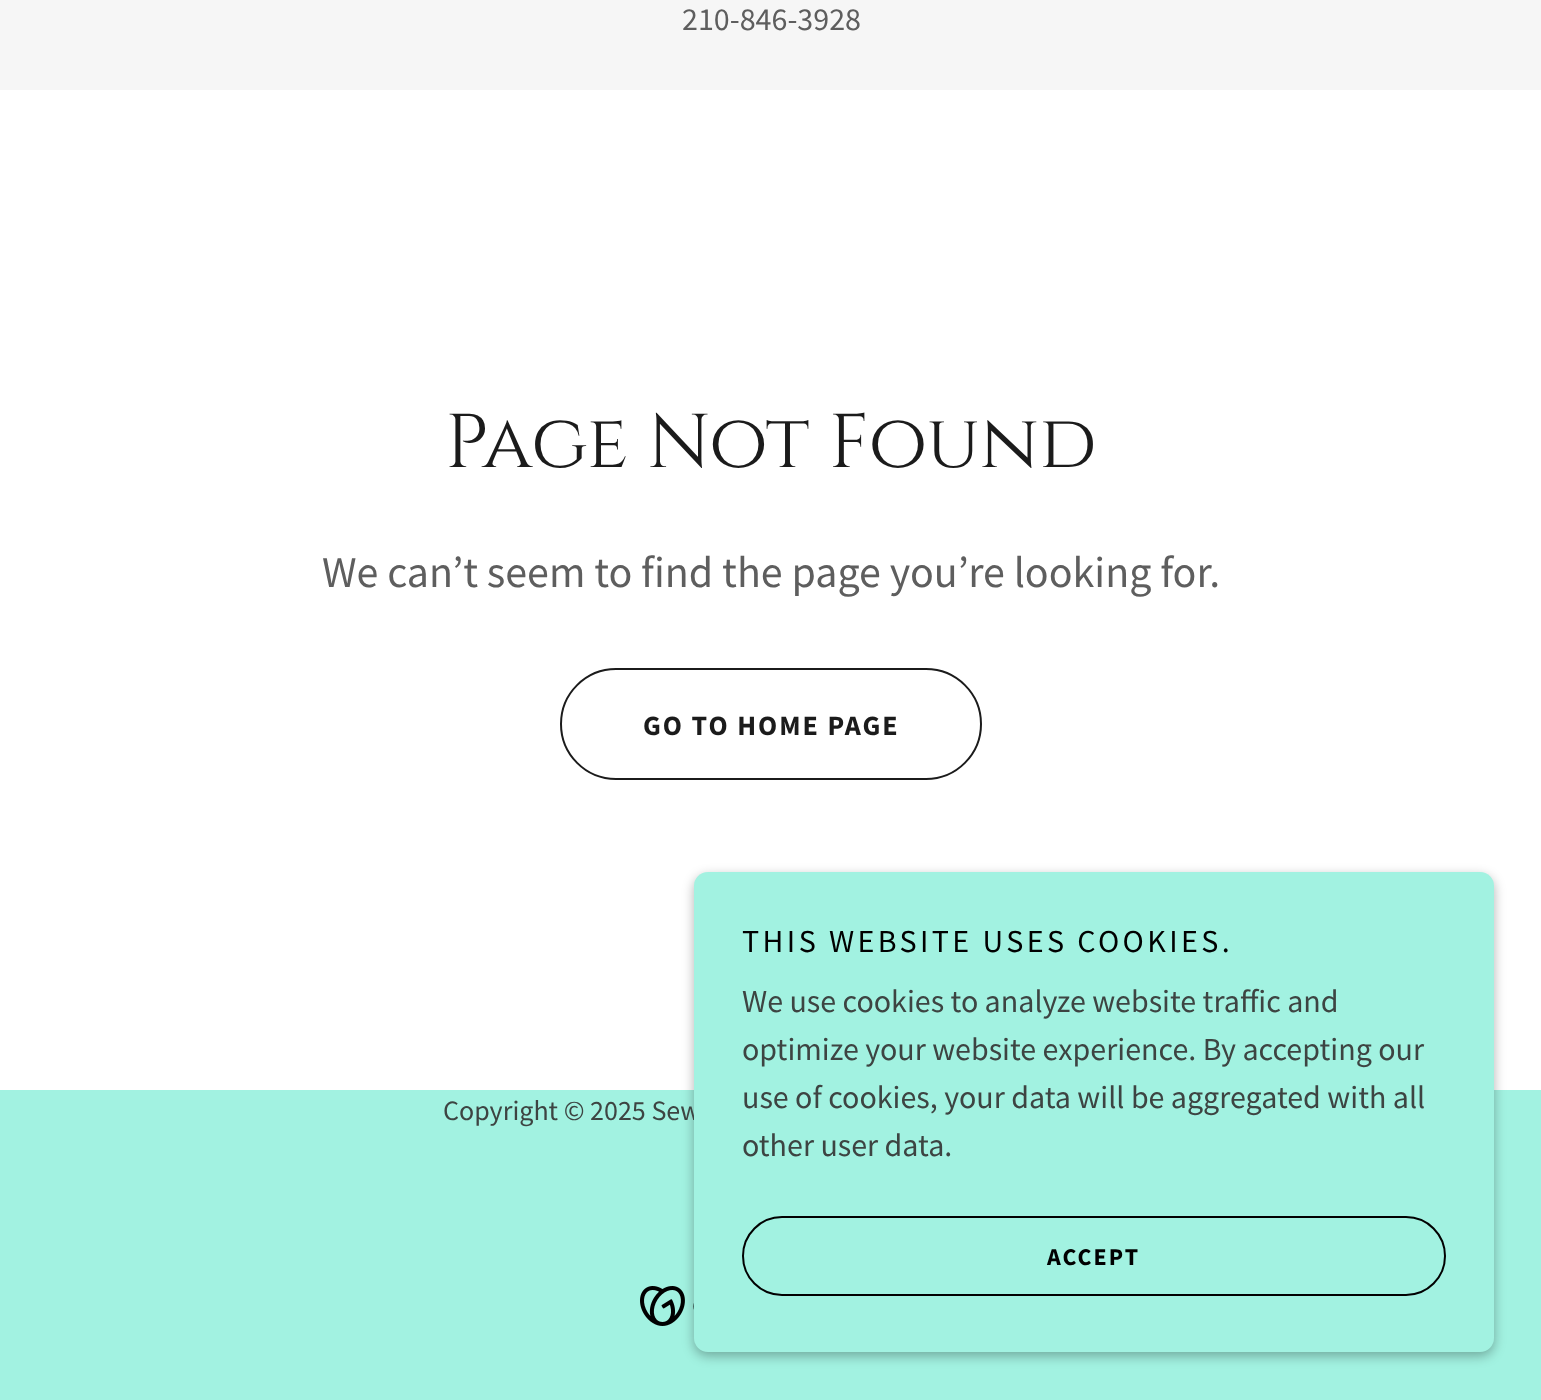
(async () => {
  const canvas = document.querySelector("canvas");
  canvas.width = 1541;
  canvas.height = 1400;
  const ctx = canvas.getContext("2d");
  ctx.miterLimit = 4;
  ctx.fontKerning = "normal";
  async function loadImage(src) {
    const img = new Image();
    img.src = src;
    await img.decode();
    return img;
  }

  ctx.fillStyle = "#a2f2e1";
  ctx.fillRect(0, 0, 1541, 1400);
  ctx.fillStyle = "#f6f6f6";
  ctx.fillRect(0, 0, 1541, 90);
  ctx.fillStyle = "#ffffff";
  ctx.fillRect(0, 90, 1541, 1000);
  ctx.beginPath();
  ctx.roundRect(561, 669, 420, 110, 55);
  ctx.strokeStyle = "#1b1b1b";
  ctx.lineWidth = 2;
  ctx.stroke();
  ctx.drawImage(await loadImage("img/1.png"), 640, 1286, 54, 40);
  ctx.fillStyle = "rgba(0, 0, 0, 0.3)";
  ctx.filter = "blur(6px)";
  ctx.beginPath();
  ctx.roundRect(694, 876, 800, 480, 14);
  ctx.fill();
  ctx.filter = "none";
  ctx.font = "32px Source Sans Pro";
  ctx.fillStyle = "#5e5e5e";
  ctx.fillText("210-846-3928", 682, 30);
  ctx.font = "76px Cinzel";
  ctx.fillStyle = "#1b1b1b";
  ctx.fillText("Page Not Found", 445, 467);
  ctx.font = "44px Source Sans Pro";
  ctx.fillStyle = "#5e5e5e";
  ctx.fillText("We can’t seem to find the page you’re looking for.", 322, 587);
  ctx.letterSpacing = "2px";
  ctx.font = "bold 28px Source Sans Pro";
  ctx.fillStyle = "#1b1b1b";
  ctx.fillText("GO TO HOME PAGE", 643, 735);
  ctx.letterSpacing = "0px";
  ctx.font = "28px Source Sans Pro";
  ctx.fillStyle = "#3d4442";
  ctx.fillText("Copyright © 2025 Sew", 443, 1120);
  ctx.fillStyle = "#a2f2e1";
  ctx.beginPath();
  ctx.roundRect(694, 872, 800, 480, 14);
  ctx.fill();
  ctx.letterSpacing = "3.4px";
  ctx.font = "32px Source Sans Pro";
  ctx.fillStyle = "#010101";
  ctx.fillText("THIS WEBSITE USES COOKIES.", 742, 952);
  ctx.letterSpacing = "0px";
  ctx.fillStyle = "#3d4442";
  for (const [text, x, y] of [
    ["We use cookies to analyze website traffic and", 742, 1012],
    ["optimize your website experience. By accepting our", 742, 1060],
    ["use of cookies, your data will be aggregated with all", 742, 1108],
    ["other user data.", 742, 1156],
  ]) {
    ctx.fillText(text, x, y);
  }
  ctx.beginPath();
  ctx.roundRect(743, 1217, 702, 78, 39);
  ctx.strokeStyle = "#010101";
  ctx.stroke();
  ctx.letterSpacing = "2px";
  ctx.font = "bold 24px Source Sans Pro";
  ctx.fillStyle = "#010101";
  ctx.fillText("ACCEPT", 1047, 1265);
})();
